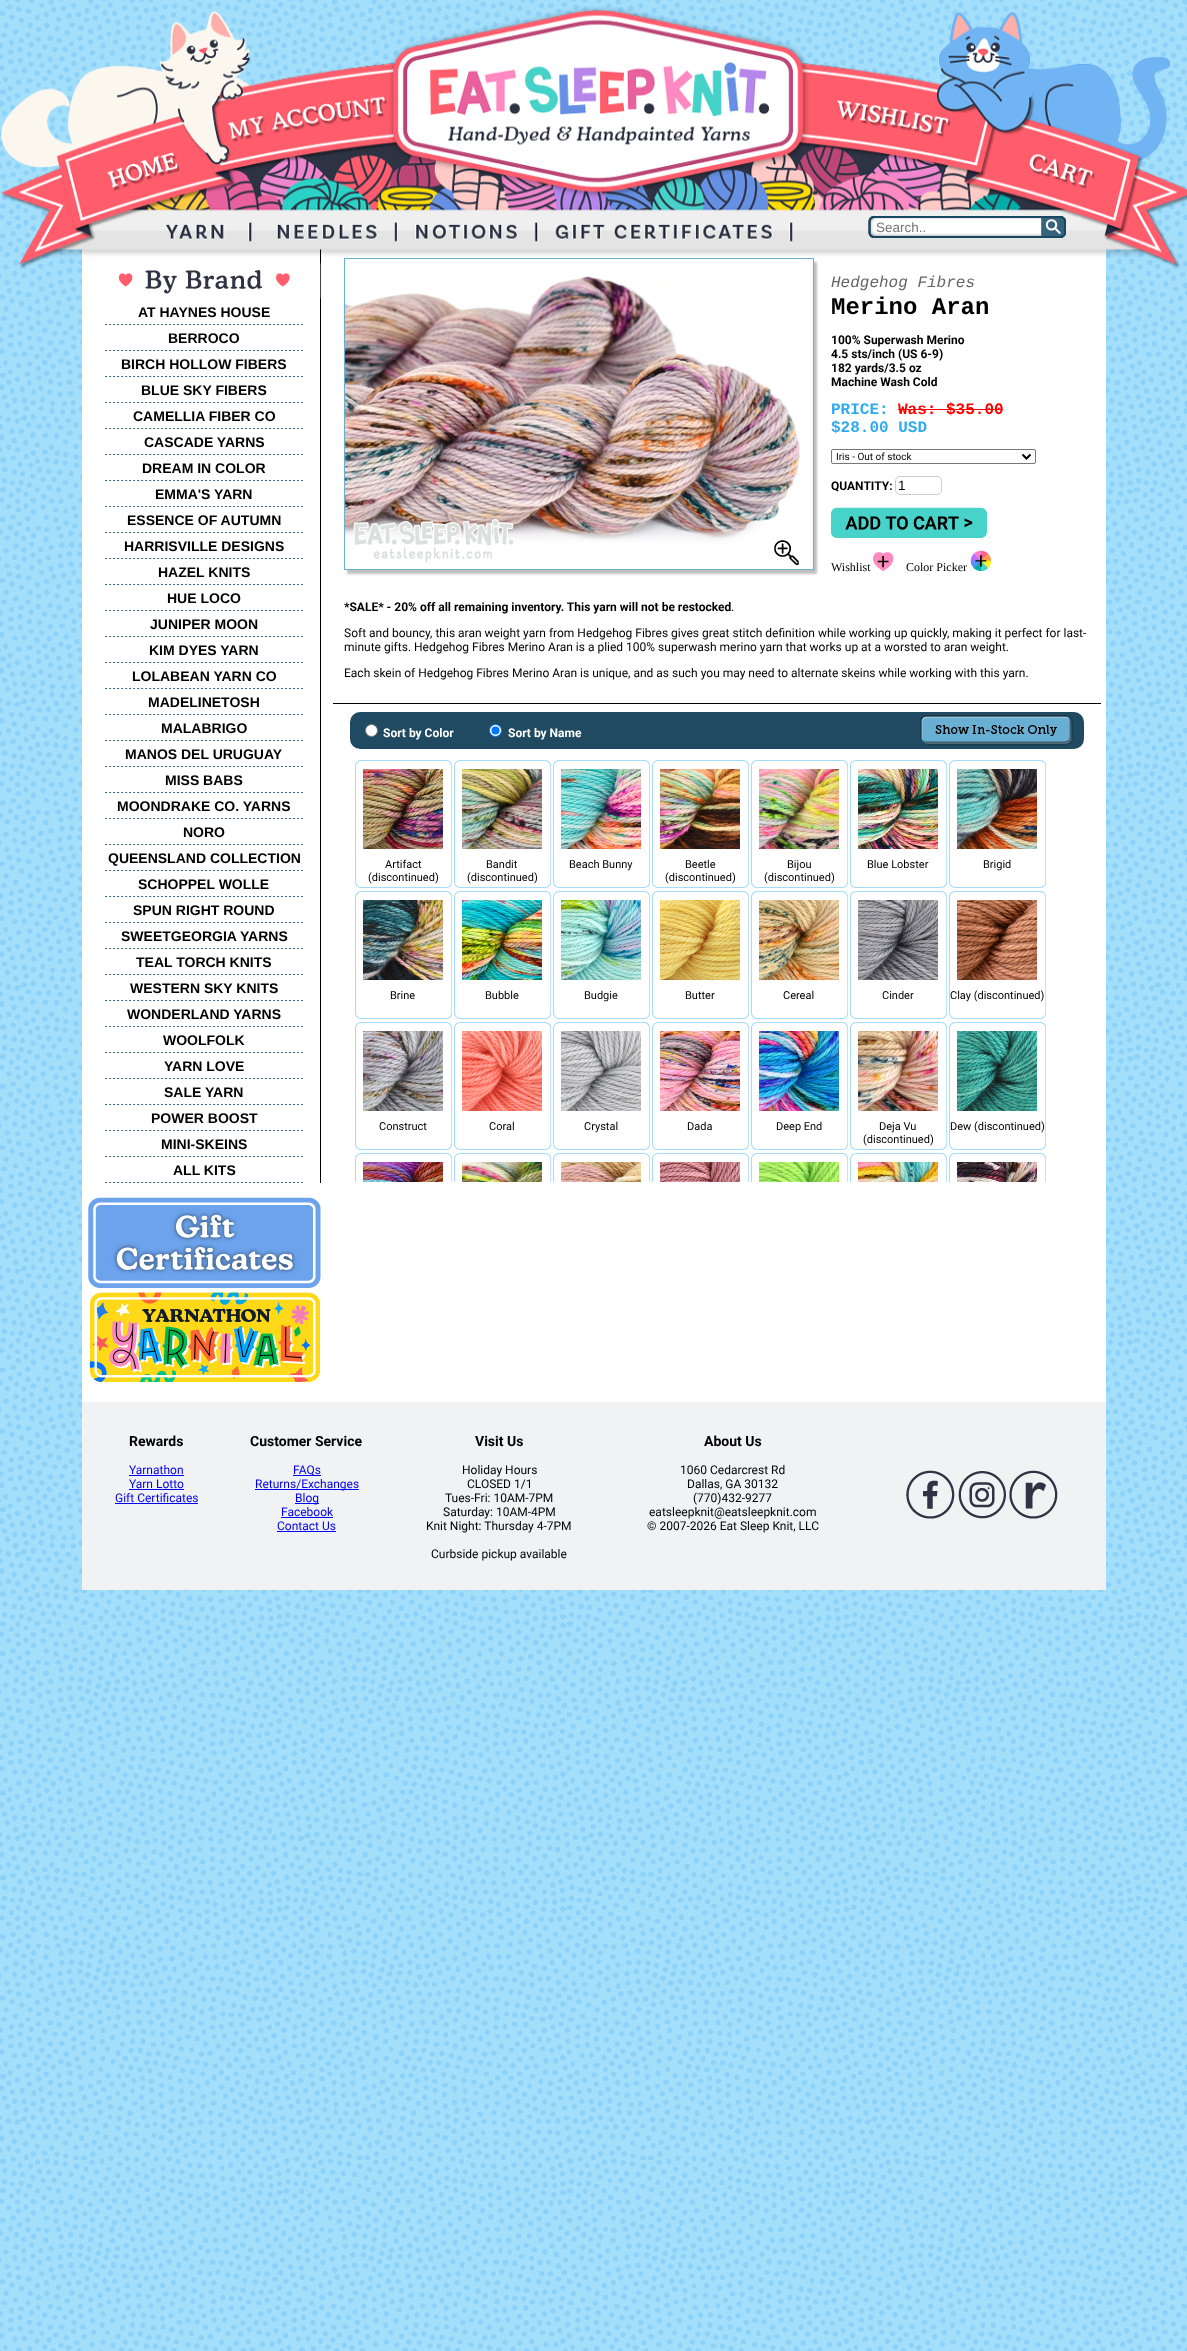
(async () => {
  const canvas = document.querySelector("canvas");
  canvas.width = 1187;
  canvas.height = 2351;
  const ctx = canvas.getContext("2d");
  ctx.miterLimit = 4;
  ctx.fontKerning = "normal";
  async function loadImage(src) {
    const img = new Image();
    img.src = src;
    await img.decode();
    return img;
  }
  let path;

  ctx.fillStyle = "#ffffff";
  ctx.fillRect(0, 0, 1187, 2351);
  ctx.drawImage(await loadImage("img/1.png"), 0, 0, 1187, 2351);
  ctx.fillRect(82, 248, 1024, 1154);
  ctx.fillStyle = "#000000";
  ctx.fillRect(320, 247, 1, 936);
  ctx.drawImage(await loadImage("img/5.png"), 119, 263, 202, 36);
  ctx.drawImage(await loadImage("img/9.png"), 344, 258, 475, 318);
  ctx.drawImage(await loadImage("img/2.png"), 1, 6, 1186, 263);
  ctx.drawImage(await loadImage("img/3.png"), 868, 216, 173, 22);
  ctx.drawImage(await loadImage("img/4.png"), 1041, 216, 25, 22);
  ctx.drawImage(await loadImage("img/6.png"), 105, 324, 198, 1);
  ctx.drawImage(await loadImage("img/6.png"), 105, 350, 198, 1);
  ctx.drawImage(await loadImage("img/6.png"), 105, 376, 198, 1);
  ctx.drawImage(await loadImage("img/6.png"), 105, 402, 198, 1);
  ctx.drawImage(await loadImage("img/6.png"), 105, 428, 198, 1);
  ctx.drawImage(await loadImage("img/6.png"), 105, 454, 198, 1);
  ctx.drawImage(await loadImage("img/6.png"), 105, 480, 198, 1);
  ctx.drawImage(await loadImage("img/6.png"), 105, 506, 198, 1);
  ctx.drawImage(await loadImage("img/6.png"), 105, 532, 198, 1);
  ctx.drawImage(await loadImage("img/6.png"), 105, 558, 198, 1);
  ctx.drawImage(await loadImage("img/6.png"), 105, 584, 198, 1);
  ctx.drawImage(await loadImage("img/6.png"), 105, 610, 198, 1);
  ctx.drawImage(await loadImage("img/6.png"), 105, 636, 198, 1);
  ctx.drawImage(await loadImage("img/6.png"), 105, 662, 198, 1);
  ctx.drawImage(await loadImage("img/6.png"), 105, 688, 198, 1);
  ctx.drawImage(await loadImage("img/6.png"), 105, 714, 198, 1);
  ctx.drawImage(await loadImage("img/6.png"), 105, 740, 198, 1);
  ctx.drawImage(await loadImage("img/6.png"), 105, 766, 198, 1);
  ctx.drawImage(await loadImage("img/6.png"), 105, 792, 198, 1);
  ctx.drawImage(await loadImage("img/6.png"), 105, 818, 198, 1);
  ctx.drawImage(await loadImage("img/6.png"), 105, 844, 198, 1);
  ctx.drawImage(await loadImage("img/6.png"), 105, 870, 198, 1);
  ctx.drawImage(await loadImage("img/6.png"), 105, 896, 198, 1);
  ctx.drawImage(await loadImage("img/6.png"), 105, 922, 198, 1);
  ctx.drawImage(await loadImage("img/6.png"), 105, 948, 198, 1);
  ctx.drawImage(await loadImage("img/6.png"), 105, 974, 198, 1);
  ctx.drawImage(await loadImage("img/6.png"), 105, 1000, 198, 1);
  ctx.drawImage(await loadImage("img/6.png"), 105, 1026, 198, 1);
  ctx.drawImage(await loadImage("img/6.png"), 105, 1052, 198, 1);
  ctx.drawImage(await loadImage("img/6.png"), 105, 1078, 198, 1);
  ctx.drawImage(await loadImage("img/6.png"), 105, 1104, 198, 1);
  ctx.drawImage(await loadImage("img/6.png"), 105, 1130, 198, 1);
  ctx.drawImage(await loadImage("img/6.png"), 105, 1156, 198, 1);
  ctx.drawImage(await loadImage("img/6.png"), 105, 1182, 198, 1);
  ctx.drawImage(await loadImage("img/7.png"), 88, 1197, 233, 91);
  ctx.drawImage(await loadImage("img/8.png"), 89, 1292, 231, 90);
  ctx.fillRect(333, 703, 768, 1);
  ctx.drawImage(await loadImage("img/10.png"), 774, 540, 25, 25);
  ctx.fillStyle = "#ff0000";
  ctx.fillRect(898, 409, 105, 1);
  ctx.beginPath();
  ctx.roundRect(831.5, 449.5, 204, 14, 1.5);
  ctx.strokeStyle = "#767676";
  ctx.stroke();
  path = new Path2D("M1022.5 454.5L1026.5 458.5L1030.5 454.5");
  ctx.strokeStyle = "#000000";
  ctx.lineWidth = 2;
  ctx.stroke(path);
  ctx.beginPath();
  ctx.roundRect(895.5, 476.5, 46, 18, 4.5);
  ctx.strokeStyle = "#cccccc";
  ctx.lineWidth = 1;
  ctx.stroke();
  ctx.drawImage(await loadImage("img/11.png"), 831, 507, 156, 31);
  ctx.drawImage(await loadImage("img/12.png"), 873, 552, 21, 19);
  ctx.drawImage(await loadImage("img/13.png"), 970, 550, 21, 21);
  ctx.fillStyle = "#1f4a61";
  ctx.beginPath();
  ctx.roundRect(350, 712, 734, 37, 10);
  ctx.fill();
  ctx.fillStyle = "#ffffff";
  ctx.beginPath();
  ctx.arc(371.5, 730.5, 6, 0, Math.PI * 2);
  ctx.fill();
  ctx.strokeStyle = "#767676";
  ctx.stroke();
  ctx.beginPath();
  ctx.arc(495.5, 730.5, 6, 0, Math.PI * 2);
  ctx.fill();
  ctx.strokeStyle = "#0075ff";
  ctx.stroke();
  ctx.fillStyle = "#0075ff";
  ctx.beginPath();
  ctx.arc(495.5, 730.5, 4, 0, Math.PI * 2);
  ctx.fill();
  ctx.drawImage(await loadImage("img/14.png"), 920, 715, 154, 31);
  ctx.drawImage(await loadImage("img/15.png"), 355, 760, 97, 128);
  ctx.drawImage(await loadImage("img/16.png"), 363, 769, 80, 80);
  ctx.drawImage(await loadImage("img/15.png"), 454, 760, 97, 128);
  ctx.drawImage(await loadImage("img/17.png"), 462, 769, 80, 80);
  ctx.drawImage(await loadImage("img/15.png"), 553, 760, 97, 128);
  ctx.drawImage(await loadImage("img/18.png"), 561, 769, 80, 80);
  ctx.drawImage(await loadImage("img/15.png"), 652, 760, 97, 128);
  ctx.drawImage(await loadImage("img/19.png"), 660, 769, 80, 80);
  ctx.drawImage(await loadImage("img/15.png"), 751, 760, 97, 128);
  ctx.drawImage(await loadImage("img/20.png"), 759, 769, 80, 80);
  ctx.drawImage(await loadImage("img/15.png"), 850, 760, 97, 128);
  ctx.drawImage(await loadImage("img/21.png"), 858, 769, 80, 80);
  ctx.drawImage(await loadImage("img/15.png"), 949, 760, 97, 128);
  ctx.drawImage(await loadImage("img/22.png"), 957, 769, 80, 80);
  ctx.drawImage(await loadImage("img/15.png"), 355, 891, 97, 128);
  ctx.drawImage(await loadImage("img/23.png"), 363, 900, 80, 80);
  ctx.drawImage(await loadImage("img/15.png"), 454, 891, 97, 128);
  ctx.drawImage(await loadImage("img/24.png"), 462, 900, 80, 80);
  ctx.drawImage(await loadImage("img/15.png"), 553, 891, 97, 128);
  ctx.drawImage(await loadImage("img/25.png"), 561, 900, 80, 80);
  ctx.drawImage(await loadImage("img/15.png"), 652, 891, 97, 128);
  ctx.drawImage(await loadImage("img/26.png"), 660, 900, 80, 80);
  ctx.drawImage(await loadImage("img/15.png"), 751, 891, 97, 128);
  ctx.drawImage(await loadImage("img/27.png"), 759, 900, 80, 80);
  ctx.drawImage(await loadImage("img/15.png"), 850, 891, 97, 128);
  ctx.drawImage(await loadImage("img/28.png"), 858, 900, 80, 80);
  ctx.drawImage(await loadImage("img/15.png"), 949, 891, 97, 128);
  ctx.drawImage(await loadImage("img/29.png"), 957, 900, 80, 80);
  ctx.drawImage(await loadImage("img/15.png"), 355, 1022, 97, 128);
  ctx.drawImage(await loadImage("img/30.png"), 363, 1031, 80, 80);
  ctx.drawImage(await loadImage("img/15.png"), 454, 1022, 97, 128);
  ctx.drawImage(await loadImage("img/31.png"), 462, 1031, 80, 80);
  ctx.drawImage(await loadImage("img/15.png"), 553, 1022, 97, 128);
  ctx.drawImage(await loadImage("img/32.png"), 561, 1031, 80, 80);
  ctx.drawImage(await loadImage("img/15.png"), 652, 1022, 97, 128);
  ctx.drawImage(await loadImage("img/33.png"), 660, 1031, 80, 80);
  ctx.drawImage(await loadImage("img/15.png"), 751, 1022, 97, 128);
  ctx.drawImage(await loadImage("img/34.png"), 759, 1031, 80, 80);
  ctx.drawImage(await loadImage("img/15.png"), 850, 1022, 97, 128);
  ctx.drawImage(await loadImage("img/35.png"), 858, 1031, 80, 80);
  ctx.drawImage(await loadImage("img/15.png"), 949, 1022, 97, 128);
  ctx.drawImage(await loadImage("img/36.png"), 957, 1031, 80, 80);
  ctx.drawImage(await loadImage("img/37.png"), 355, 1153, 97, 29);
  ctx.drawImage(await loadImage("img/38.png"), 363, 1162, 80, 20);
  ctx.drawImage(await loadImage("img/37.png"), 454, 1153, 97, 29);
  ctx.drawImage(await loadImage("img/39.png"), 462, 1162, 80, 20);
  ctx.drawImage(await loadImage("img/37.png"), 553, 1153, 97, 29);
  ctx.drawImage(await loadImage("img/40.png"), 561, 1162, 80, 20);
  ctx.drawImage(await loadImage("img/37.png"), 652, 1153, 97, 29);
  ctx.drawImage(await loadImage("img/41.png"), 660, 1162, 80, 20);
  ctx.drawImage(await loadImage("img/37.png"), 751, 1153, 97, 29);
  ctx.drawImage(await loadImage("img/42.png"), 759, 1162, 80, 20);
  ctx.drawImage(await loadImage("img/37.png"), 850, 1153, 97, 29);
  ctx.drawImage(await loadImage("img/43.png"), 858, 1162, 80, 20);
  ctx.drawImage(await loadImage("img/37.png"), 949, 1153, 97, 29);
  ctx.drawImage(await loadImage("img/44.png"), 957, 1162, 80, 20);
  for (const [x, y, w, h, color] of [
    [82, 1402, 1024, 188, "#f1f2f3"],
    [129, 1475, 55, 1, "#0000ee"],
    [129, 1489, 55, 1, "#0000ee"],
    [115, 1503, 83, 1, "#0000ee"],
    [293, 1475, 28, 1, "#0000ee"],
    [255, 1489, 104, 1, "#0000ee"],
    [295, 1503, 24, 1, "#0000ee"],
    [281, 1517, 52, 1, "#0000ee"],
    [277, 1531, 59, 1, "#0000ee"],
  ]) {
    ctx.fillStyle = color;
    ctx.fillRect(x, y, w, h);
  }
  ctx.drawImage(await loadImage("img/45.png"), 906, 1470, 49, 49);
  ctx.drawImage(await loadImage("img/46.png"), 958, 1471, 48, 48);
  ctx.drawImage(await loadImage("img/47.png"), 1009, 1470, 49, 49);
  ctx.font = "13.5px Liberation Sans";
  ctx.fillStyle = "#757575";
  ctx.fillText("Search..", 876, 232);
  ctx.font = "bold 14px Liberation Sans";
  ctx.fillStyle = "#000000";
  for (const [text, x, y] of [
    ["AT HAYNES HOUSE", 138, 317],
    ["BERROCO", 168, 343],
    ["BIRCH HOLLOW FIBERS", 121, 369],
    ["BLUE SKY FIBERS", 141, 395],
    ["CAMELLIA FIBER CO", 133, 421],
    ["CASCADE YARNS", 144, 447],
    ["DREAM IN COLOR", 142, 473],
    ["EMMA'S YARN", 155, 499],
    ["ESSENCE OF AUTUMN", 127, 525],
    ["HARRISVILLE DESIGNS", 124, 551],
    ["HAZEL KNITS", 158, 577],
    ["HUE LOCO", 167, 603],
    ["JUNIPER MOON", 150, 629],
    ["KIM DYES YARN", 149, 655],
    ["LOLABEAN YARN CO", 132, 681],
    ["MADELINETOSH", 148, 707],
    ["MALABRIGO", 161, 733],
    ["MANOS DEL URUGUAY", 125, 759],
    ["MISS BABS", 165, 785],
    ["MOONDRAKE CO. YARNS", 117, 811],
    ["NORO", 183, 837],
    ["QUEENSLAND COLLECTION", 108, 863],
    ["SCHOPPEL WOLLE", 138, 889],
    ["SPUN RIGHT ROUND", 133, 915],
    ["SWEETGEORGIA YARNS", 121, 941],
    ["TEAL TORCH KNITS", 136, 967],
    ["WESTERN SKY KNITS", 130, 993],
    ["WONDERLAND YARNS", 127, 1019],
    ["WOOLFOLK", 163, 1045],
    ["YARN LOVE", 164, 1071],
    ["SALE YARN", 164, 1097],
    ["POWER BOOST", 151, 1123],
    ["MINI-SKEINS", 161, 1149],
    ["ALL KITS", 173, 1175],
  ]) {
    ctx.fillText(text, x, y);
  }
  ctx.font = "italic 16px Liberation Mono";
  ctx.fillStyle = "#666666";
  ctx.fillText("Hedgehog Fibres", 831, 287);
  ctx.font = "bold 24px Liberation Mono";
  ctx.fillStyle = "#000000";
  ctx.fillText("Merino Aran", 831, 314);
  ctx.font = "bold 12px Roboto";
  for (const [text, x, y] of [
    ["100% Superwash Merino", 831, 344],
    ["4.5 sts/inch (US 6-9)", 831, 358],
    ["182 yards/3.5 oz", 831, 372],
    ["Machine Wash Cold", 831, 386],
  ]) {
    ctx.fillText(text, x, y);
  }
  ctx.font = "bold 16px Liberation Mono";
  ctx.fillStyle = "#30aaef";
  ctx.fillText("PRICE:", 831, 414);
  ctx.fillStyle = "#ff0000";
  ctx.fillText("Was: $35.00", 898, 414);
  ctx.fillStyle = "#30aaef";
  ctx.fillText("$28.00 USD", 831, 432);
  ctx.font = "10px Roboto";
  ctx.fillStyle = "#000000";
  ctx.fillText("Iris - Out of stock", 836, 460);
  ctx.font = "bold 12px Roboto";
  ctx.fillText("QUANTITY:", 831, 490);
  ctx.font = "13.5px Liberation Sans";
  ctx.fillText("1", 898, 490);
  ctx.font = "12px Liberation Serif";
  ctx.fillText("Wishlist", 831, 571);
  ctx.fillText("Color Picker", 906, 571);
  ctx.font = "bold 12px Roboto";
  ctx.fillText("*SALE* - 20% off all remaining inventory. This yarn will not be restocked", 344, 611);
  ctx.font = "12px Roboto";
  for (const [text, x, y] of [
    [".", 731, 611],
    ["Soft and bouncy, this aran weight yarn from Hedgehog Fibres gives great stitch definition while working up quickly, making it perfect for last-", 344, 637],
    ["minute gifts. Hedgehog Fibres Merino Aran is a plied 100% superwash merino yarn that works up at a worsted to aran weight.", 344, 651],
    ["Each skein of Hedgehog Fibres Merino Aran is unique, and as such you may need to alternate skeins while working with this yarn.", 344, 677],
  ]) {
    ctx.fillText(text, x, y);
  }
  ctx.font = "bold 12px Roboto";
  ctx.fillStyle = "#ffffff";
  ctx.fillText("Sort by Color", 383, 737);
  ctx.fillText("Sort by Name", 508, 737);
  ctx.font = "11px Roboto";
  ctx.fillStyle = "#000000";
  for (const [text, x, y] of [
    ["Artifact", 385, 868],
    ["(discontinued)", 368, 881],
    ["Bandit", 486, 868],
    ["(discontinued)", 467, 881],
    ["Beach Bunny", 569, 868],
    ["Beetle", 685, 868],
    ["(discontinued)", 665, 881],
    ["Bijou", 787, 868],
    ["(discontinued)", 764, 881],
    ["Blue Lobster", 867, 868],
    ["Brigid", 983, 868],
    ["Brine", 390, 999],
    ["Bubble", 485, 999],
    ["Budgie", 584, 999],
    ["Butter", 685, 999],
    ["Cereal", 783, 999],
    ["Cinder", 882, 999],
    ["Clay (discontinued)", 950, 999],
    ["Construct", 379, 1130],
    ["Coral", 489, 1130],
    ["Crystal", 584, 1130],
    ["Dada", 687, 1130],
    ["Deep End", 776, 1130],
    ["Deja Vu", 879, 1130],
    ["(discontinued)", 863, 1143],
    ["Dew (discontinued)", 950, 1130],
  ]) {
    ctx.fillText(text, x, y);
  }
  ctx.font = "bold 14px Roboto";
  ctx.fillText("Rewards", 129, 1446);
  ctx.font = "12px Roboto";
  ctx.fillStyle = "#0000ee";
  for (const [text, x, y] of [
    ["Yarnathon", 129, 1474],
    ["Yarn Lotto", 129, 1488],
    ["Gift Certificates", 115, 1502],
  ]) {
    ctx.fillText(text, x, y);
  }
  ctx.font = "bold 14px Roboto";
  ctx.fillStyle = "#000000";
  ctx.fillText("Customer Service", 250, 1446);
  ctx.font = "12px Roboto";
  ctx.fillStyle = "#0000ee";
  for (const [text, x, y] of [
    ["FAQs", 293, 1474],
    ["Returns/Exchanges", 255, 1488],
    ["Blog", 295, 1502],
    ["Facebook", 281, 1516],
    ["Contact Us", 277, 1530],
  ]) {
    ctx.fillText(text, x, y);
  }
  ctx.font = "bold 14px Roboto";
  ctx.fillStyle = "#000000";
  ctx.fillText("Visit Us", 475, 1446);
  ctx.font = "12px Roboto";
  for (const [text, x, y] of [
    ["Holiday Hours", 462, 1474],
    ["CLOSED 1/1", 467, 1488],
    ["Tues-Fri: 10AM-7PM", 445, 1502],
    ["Saturday: 10AM-4PM", 443, 1516],
    ["Knit Night: Thursday 4-7PM", 426, 1530],
    ["Curbside pickup available", 431, 1558],
  ]) {
    ctx.fillText(text, x, y);
  }
  ctx.font = "bold 14px Roboto";
  ctx.fillText("About Us", 704, 1446);
  ctx.font = "12px Roboto";
  for (const [text, x, y] of [
    ["1060 Cedarcrest Rd", 680, 1474],
    ["Dallas, GA 30132", 687, 1488],
    ["(770)432-9277", 693, 1502],
    ["eatsleepknit@eatsleepknit.com", 649, 1516],
    ["© 2007-2026 Eat Sleep Knit, LLC", 647, 1530],
  ]) {
    ctx.fillText(text, x, y);
  }
})();
